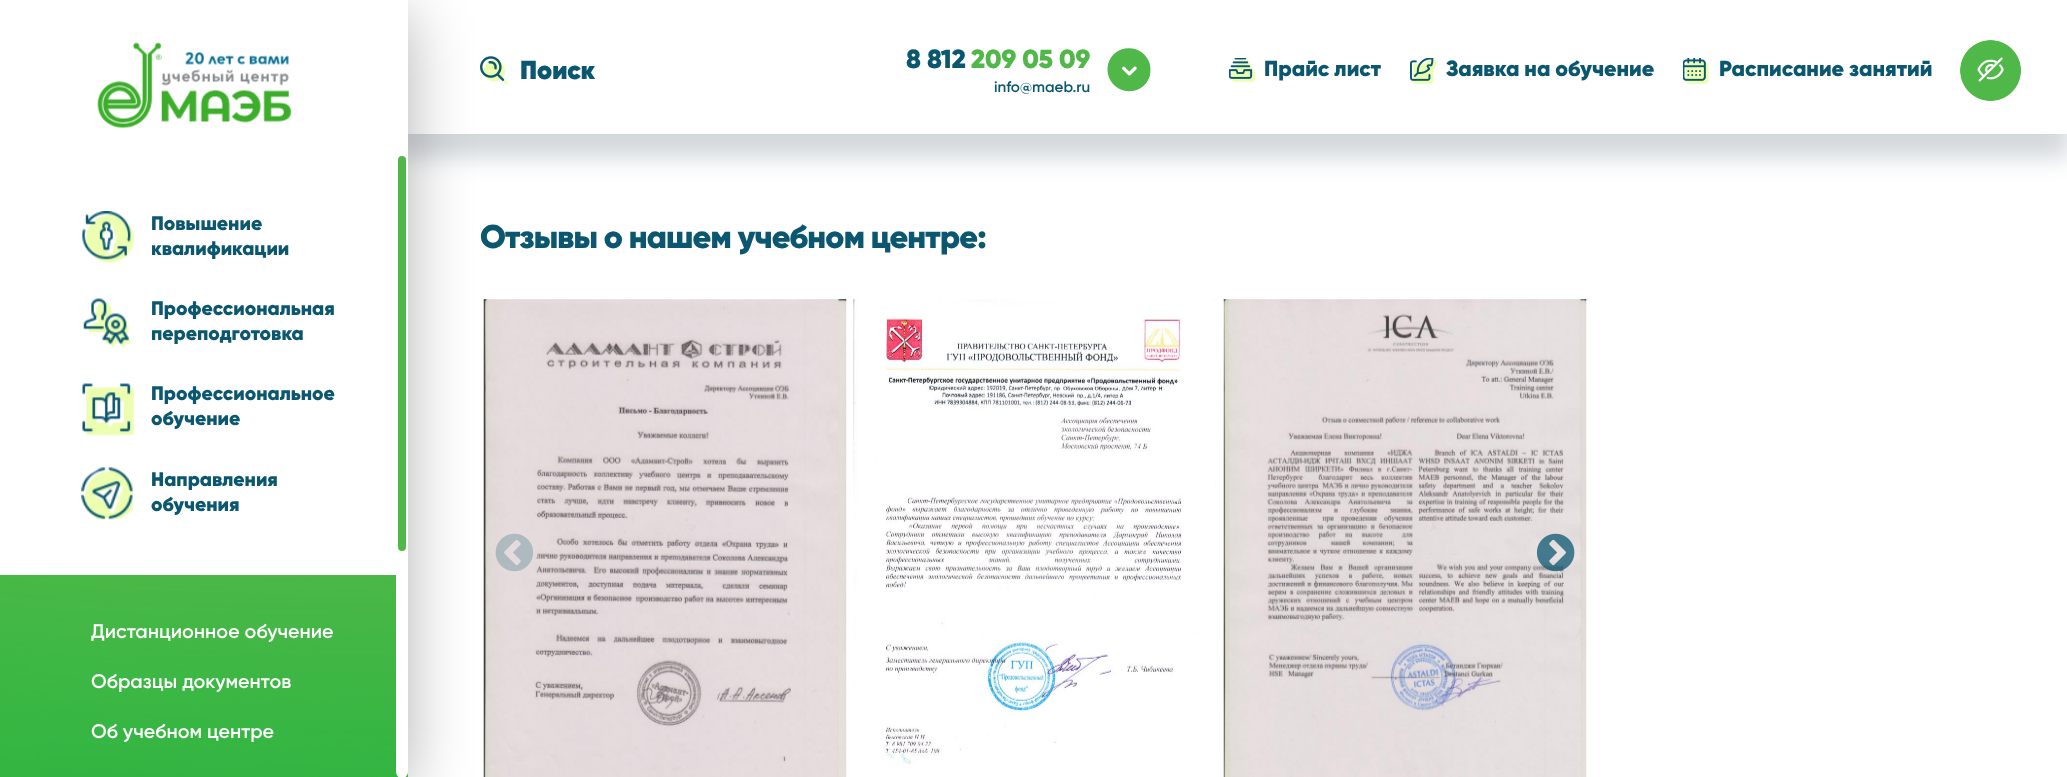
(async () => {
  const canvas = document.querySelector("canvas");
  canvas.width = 2067;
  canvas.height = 777;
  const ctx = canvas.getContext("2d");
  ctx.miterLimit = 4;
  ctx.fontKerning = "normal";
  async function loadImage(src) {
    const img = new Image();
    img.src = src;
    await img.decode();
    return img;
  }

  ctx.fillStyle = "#ffffff";
  ctx.fillRect(0, 0, 2067, 777);
  ctx.fillStyle = "rgba(34, 60, 80, 0.2)";
  ctx.filter = "blur(11px)";
  ctx.beginPath();
  ctx.rect(399, 14, 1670, 144);
  ctx.fill();
  ctx.filter = "none";
  ctx.fillStyle = "#ffffff";
  ctx.fillRect(408, 0, 1659, 134);
  ctx.drawImage(await loadImage("img/1.png"), 480, 56, 28, 28);
  ctx.drawImage(await loadImage("img/2.png"), 1107, 48, 44, 44);
  ctx.drawImage(await loadImage("img/3.png"), 1229, 58, 26, 24);
  ctx.drawImage(await loadImage("img/4.png"), 1410, 58, 26, 26);
  ctx.drawImage(await loadImage("img/5.png"), 1683, 58, 26, 26);
  ctx.drawImage(await loadImage("img/6.png"), 1960, 40, 61, 61);
  ctx.drawImage(await loadImage("img/13.png"), 483, 299, 364, 478);
  ctx.drawImage(await loadImage("img/16.png"), 495, 533, 38, 39);
  ctx.fillStyle = "rgba(0, 0, 0, 0.3)";
  ctx.filter = "blur(31px)";
  ctx.beginPath();
  ctx.rect(0, 13, 408, 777);
  ctx.fill();
  ctx.filter = "none";
  ctx.fillStyle = "#50b848";
  ctx.fillRect(0, 575, 408, 202);
  ctx.fillStyle = "#ffffff";
  ctx.fillRect(0, 0, 408, 575);
  ctx.drawImage(await loadImage("img/7.png"), 97, 42, 195, 86);
  ctx.drawImage(await loadImage("img/8.png"), 82, 211, 52, 53);
  ctx.drawImage(await loadImage("img/9.png"), 83, 298, 49, 51);
  ctx.drawImage(await loadImage("img/10.png"), 82, 383, 52, 53);
  ctx.drawImage(await loadImage("img/11.png"), 81, 467, 52, 53);
  ctx.drawImage(await loadImage("img/12.png"), 0, 575, 408, 202);
  ctx.beginPath();
  ctx.roundRect(396, 155, 12, 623, 6);
  ctx.fill();
  ctx.fillStyle = "#50b848";
  ctx.beginPath();
  ctx.roundRect(398, 156, 8, 395, 4);
  ctx.fill();
  ctx.drawImage(await loadImage("img/14.png"), 853, 299, 364, 466);
  ctx.drawImage(await loadImage("img/15.png"), 1223, 299, 364, 478);
  ctx.drawImage(await loadImage("img/17.png"), 1536, 533, 39, 39);
  ctx.font = "900 26.25px 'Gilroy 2'";
  ctx.fillStyle = "#0c5770";
  ctx.fillText("Поиск", 520, 79);
  ctx.font = "900 26.25px Gilroy";
  ctx.fillText("8 812", 906, 68);
  ctx.fillStyle = "#50b848";
  ctx.fillText("209 05 09", 971, 68);
  ctx.font = "600 15.25px Gilroy";
  ctx.fillStyle = "#0c5770";
  ctx.fillText("info@maeb.ru", 994, 92);
  ctx.font = "900 21.9px Gilroy";
  for (const [text, x, y] of [
    ["Прайс лист", 1264, 76],
    ["Заявка на обучение", 1446, 76],
    ["Расписание занятий", 1719, 76],
  ]) {
    ctx.fillText(text, x, y);
  }
  ctx.font = "900 19.75px Gilroy";
  for (const [text, x, y] of [
    ["Повышение", 151, 230],
    ["квалификации", 151, 255],
    ["Профессиональная", 151, 315],
    ["переподготовка", 151, 340],
    ["Профессиональное", 151, 400],
    ["обучение", 151, 425],
    ["Направления", 151, 486],
    ["обучения", 151, 511],
  ]) {
    ctx.fillText(text, x, y);
  }
  ctx.font = "600 19.75px Gilroy";
  ctx.fillStyle = "#ffffff";
  for (const [text, x, y] of [
    ["Дистанционное обучение", 91, 638],
    ["Образцы документов", 91, 688],
    ["Об учебном центре", 91, 738],
  ]) {
    ctx.fillText(text, x, y);
  }
  ctx.letterSpacing = "-0.8px";
  ctx.font = "900 32.75px Gilroy";
  ctx.fillStyle = "#0c5770";
  ctx.fillText("Отзывы о нашем учебном центре:", 480, 248);
})();
